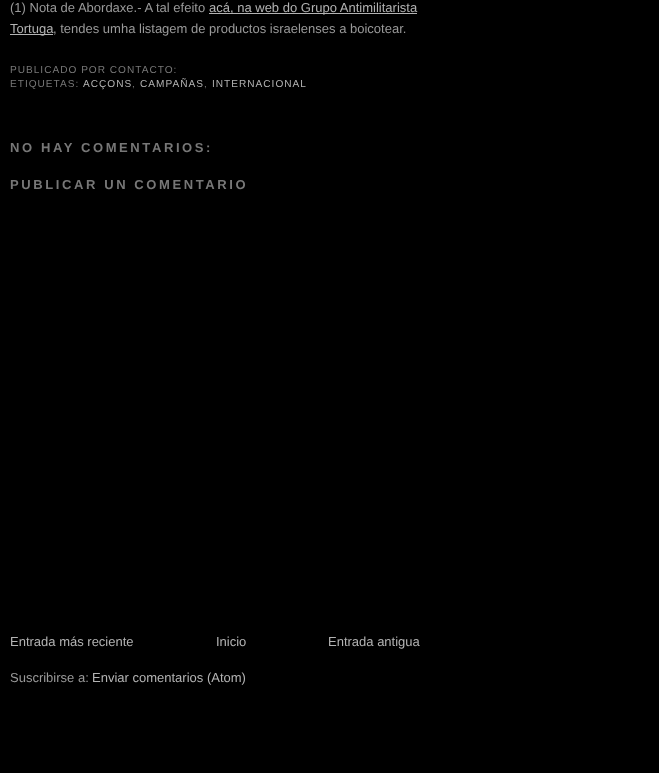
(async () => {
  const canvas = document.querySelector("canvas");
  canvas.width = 659;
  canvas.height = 773;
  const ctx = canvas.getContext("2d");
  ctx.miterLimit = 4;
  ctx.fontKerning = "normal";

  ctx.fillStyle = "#000000";
  ctx.fillRect(0, 0, 659, 773);
  ctx.fillStyle = "#b3b3b3";
  ctx.fillRect(209, 13, 208, 1);
  ctx.fillRect(10, 34, 43, 1);
  ctx.font = "13px Liberation Sans";
  ctx.fillStyle = "#999999";
  ctx.fillText("(1) Nota de Abordaxe.- A tal efeito", 10, 12);
  ctx.fillStyle = "#b3b3b3";
  ctx.fillText("acá, na web do Grupo Antimilitarista", 209, 12);
  ctx.fillText("Tortuga", 10, 33);
  ctx.fillStyle = "#999999";
  ctx.fillText(", tendes umha listagem de productos israelenses a boicotear.", 53, 33);
  ctx.letterSpacing = "1px";
  ctx.font = "10.1px Liberation Sans";
  ctx.fillStyle = "#777777";
  ctx.fillText("PUBLICADO POR CONTACTO:", 10, 73);
  ctx.fillText("ETIQUETAS:", 10, 87);
  ctx.fillStyle = "#b3b3b3";
  ctx.fillText("ACÇONS", 83, 87);
  ctx.fillStyle = "#777777";
  ctx.fillText(",", 132, 87);
  ctx.fillStyle = "#b3b3b3";
  ctx.fillText("CAMPAÑAS", 140, 87);
  ctx.fillStyle = "#777777";
  ctx.fillText(",", 204, 87);
  ctx.fillStyle = "#b3b3b3";
  ctx.fillText("INTERNACIONAL", 212, 87);
  ctx.letterSpacing = "2.6px";
  ctx.font = "bold 13px Liberation Sans";
  ctx.fillStyle = "#777777";
  ctx.fillText("NO HAY COMENTARIOS:", 10, 152);
  ctx.fillText("PUBLICAR UN COMENTARIO", 10, 189);
  ctx.letterSpacing = "0px";
  ctx.font = "13px Liberation Sans";
  ctx.fillStyle = "#b3b3b3";
  for (const [text, x, y] of [
    ["Entrada más reciente", 10, 646],
    ["Inicio", 216, 646],
    ["Entrada antigua", 328, 646],
  ]) {
    ctx.fillText(text, x, y);
  }
  ctx.fillStyle = "#999999";
  ctx.fillText("Suscribirse a:", 10, 682);
  ctx.fillStyle = "#b3b3b3";
  ctx.fillText("Enviar comentarios (Atom)", 92, 682);
})();
